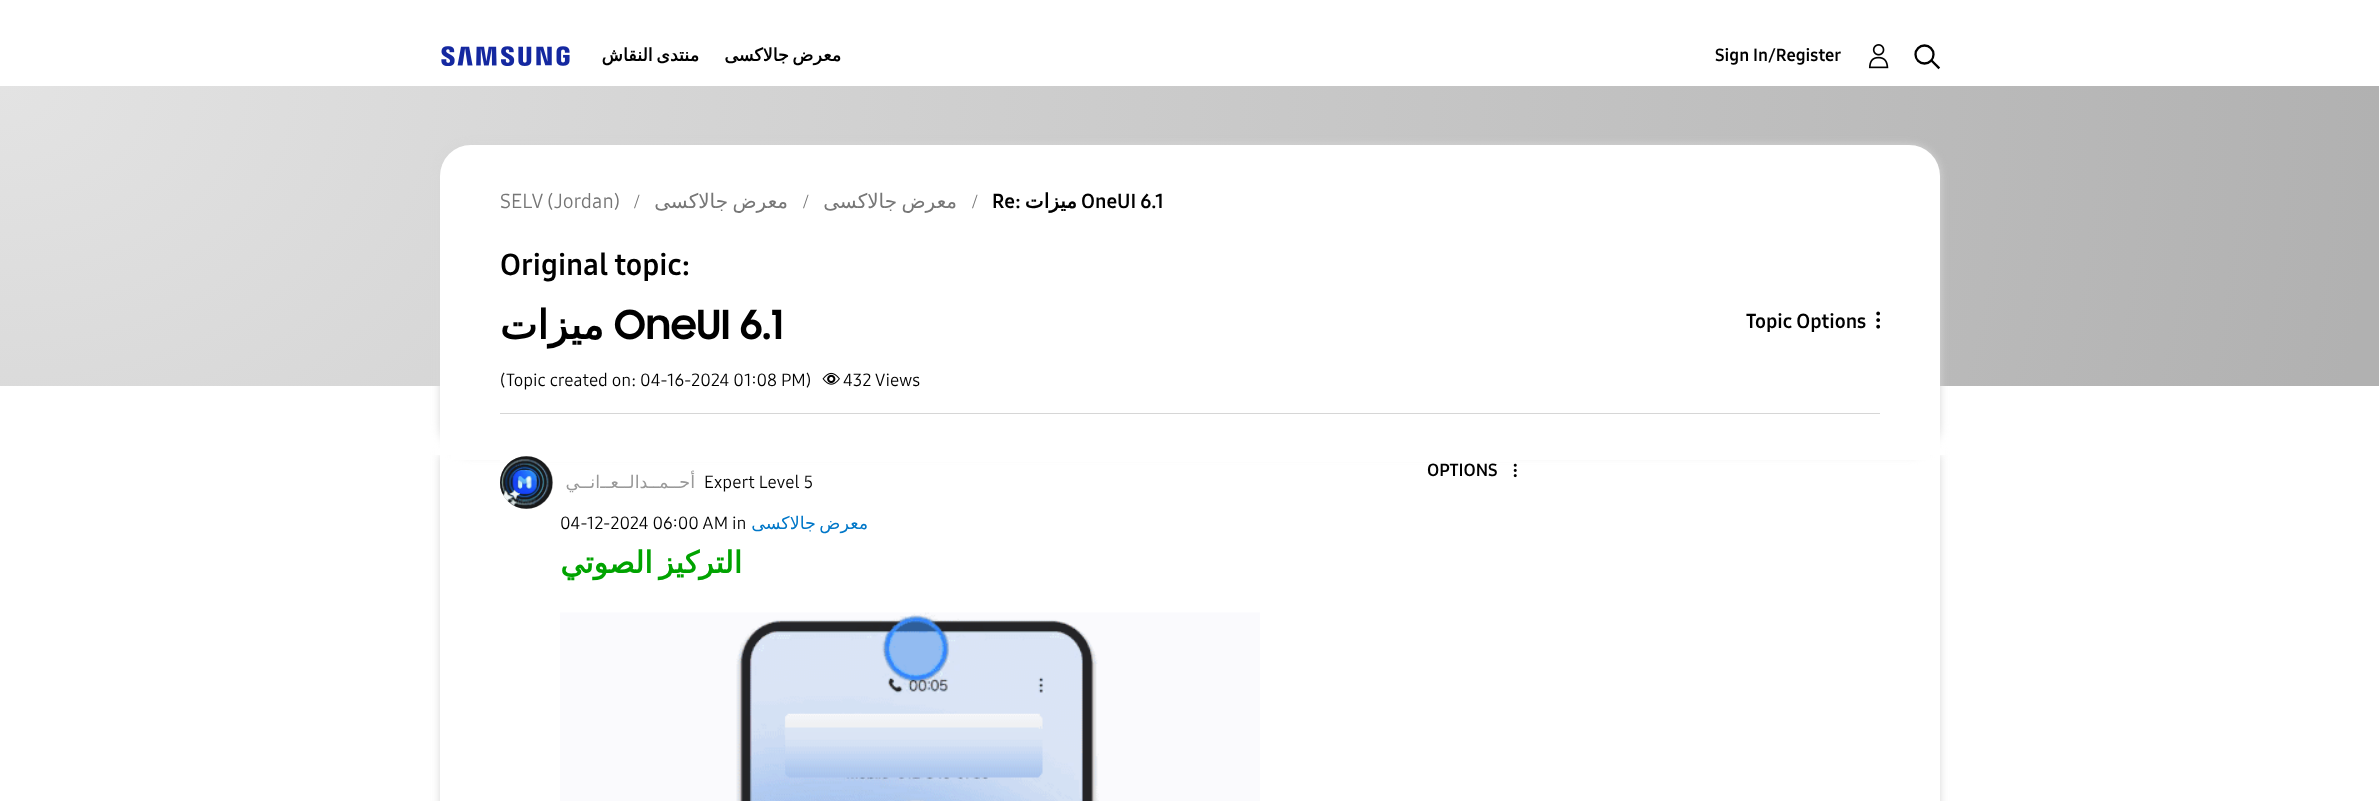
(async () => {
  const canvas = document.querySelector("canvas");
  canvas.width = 2379;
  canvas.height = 801;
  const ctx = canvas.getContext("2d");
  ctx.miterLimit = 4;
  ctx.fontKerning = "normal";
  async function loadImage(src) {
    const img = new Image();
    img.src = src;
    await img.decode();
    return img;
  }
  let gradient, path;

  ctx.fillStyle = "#ffffff";
  ctx.fillRect(0, 0, 2379, 801);
  ctx.save();
  path = new Path2D("M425 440H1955V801H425ZM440 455H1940V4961H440Z");
  ctx.clip(path, "evenodd");
  ctx.fillStyle = "#d6d6d6";
  ctx.filter = "blur(4.5px)";
  ctx.beginPath();
  ctx.rect(440, 455, 1500, 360);
  ctx.fill();
  ctx.filter = "none";
  ctx.restore();
  ctx.fillRect(435, 448, 1510, 7);
  ctx.drawImage(await loadImage("img/1.png"), 441, 46, 129, 20);
  ctx.drawImage(await loadImage("img/2.png"), 1868, 44, 21, 25);
  ctx.beginPath();
  ctx.arc(1924.5, 54.5, 9, 0, Math.PI * 2);
  ctx.strokeStyle = "#000000";
  ctx.lineWidth = 2.3;
  ctx.stroke();
  path = new Path2D("M1932.5 61.5L1938.5 67.5");
  ctx.lineCap = "square";
  ctx.stroke(path);
  gradient = ctx.createRadialGradient(0, 113.71, 0, 0, 113.71, 2380);
  gradient.addColorStop(0, "#e3e3e3");
  gradient.addColorStop(1, "#b1b1b1");
  ctx.fillStyle = gradient;
  ctx.beginPath();
  ctx.rect(0, 86, 2379, 300);
  ctx.save();
  ctx.clip();
  ctx.scale(1, 1800 / 2380);
  ctx.fillRect(0, 0, 2379, 1060);
  ctx.restore();
  ctx.fillStyle = "#d6d6d6";
  ctx.filter = "blur(4.5px)";
  ctx.beginPath();
  ctx.roundRect(440, 145, 1500, 310, 31);
  ctx.fill();
  ctx.filter = "none";
  ctx.fillStyle = "#ffffff";
  ctx.beginPath();
  ctx.roundRect(440, 145, 1500, 310, [31, 31, 0, 0]);
  ctx.fill();
  ctx.fillStyle = "#d6d6d6";
  ctx.fillRect(500, 413, 1380, 1);
  ctx.drawImage(await loadImage("img/3.png"), 1876, 311, 4, 18);
  ctx.drawImage(await loadImage("img/4.png"), 822, 372, 18, 13);
  ctx.fillStyle = "#ffffff";
  ctx.fillRect(451, 455, 1479, 5);
  ctx.fillRect(500, 460, 1016, 2);
  ctx.fillStyle = "#999999";
  ctx.filter = "blur(0.5px)";
  ctx.beginPath();
  ctx.roundRect(500, 456, 53, 53, 26.5);
  ctx.fill();
  ctx.filter = "none";
  ctx.drawImage(await loadImage("img/5.png"), 500, 456, 53, 53);
  ctx.drawImage(await loadImage("img/6.png"), 1513, 463, 4, 15);
  ctx.drawImage(await loadImage("img/7.png"), 560, 612, 700, 189);
  ctx.wordSpacing = "-2px";
  ctx.direction = "rtl";
  ctx.font = "bold 17.5px DejaVu Sans";
  ctx.fillStyle = "#000000";
  ctx.fillText("منتدى النقاش", 699, 61);
  ctx.fillText("معرض جالاكسى", 841, 61);
  ctx.wordSpacing = "0px";
  ctx.direction = "ltr";
  ctx.font = "bold 17.5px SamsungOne";
  ctx.fillText("Sign In/Register", 1715, 61);
  ctx.font = "20px SamsungOne";
  ctx.fillStyle = "#767676";
  ctx.fillText("SELV (Jordan)", 500, 208);
  ctx.font = "20px Liberation Serif";
  ctx.fillText("/", 634, 208);
  ctx.wordSpacing = "-2px";
  ctx.direction = "rtl";
  ctx.font = "20px DejaVu Sans";
  ctx.fillText("معرض جالاكسى", 788, 208);
  ctx.wordSpacing = "0px";
  ctx.direction = "ltr";
  ctx.font = "20px Liberation Serif";
  ctx.fillText("/", 803, 208);
  ctx.wordSpacing = "-2px";
  ctx.direction = "rtl";
  ctx.font = "20px DejaVu Sans";
  ctx.fillText("معرض جالاكسى", 957, 208);
  ctx.wordSpacing = "0px";
  ctx.direction = "ltr";
  ctx.font = "20px Liberation Serif";
  ctx.fillText("/", 972, 208);
  ctx.font = "bold 20px SamsungOne";
  ctx.fillStyle = "#000000";
  ctx.fillText("Re:", 992, 208);
  ctx.direction = "rtl";
  ctx.font = "bold 20px DejaVu Sans";
  ctx.fillText("ميزات", 1077, 208);
  ctx.direction = "ltr";
  ctx.font = "bold 20px SamsungOne";
  ctx.fillText("OneUI 6.1", 1081, 208);
  ctx.font = "bold 30px SamsungOne";
  ctx.fillText("Original topic:", 500, 275);
  ctx.direction = "rtl";
  ctx.font = "bold 40px DejaVu Sans";
  ctx.fillText("ميزات", 604, 339);
  ctx.direction = "ltr";
  ctx.font = "bold 40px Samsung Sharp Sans";
  ctx.fillText("OneUI 6.1", 614, 339);
  ctx.font = "bold 20px SamsungOne";
  ctx.fillText("Topic Options", 1746, 328);
  ctx.font = "17.5px SamsungOne";
  ctx.fillText("(Topic created on: 04-16-2024 01:08 PM)", 500, 386);
  ctx.fillText("432 Views", 843, 386);
  ctx.direction = "rtl";
  ctx.font = "17.5px DejaVu Sans";
  ctx.fillStyle = "#999999";
  ctx.fillText("انــي", 600, 488);
  ctx.fillText("أحــمــدالــعــ", 695, 488);
  ctx.direction = "ltr";
  ctx.font = "17.5px SamsungOne";
  ctx.fillStyle = "#000000";
  ctx.fillText("Expert Level 5", 704, 488);
  ctx.font = "bold 17.5px SamsungOne";
  ctx.fillText("OPTIONS", 1427, 476);
  ctx.font = "17.5px SamsungOne";
  ctx.fillText("04-12-2024 06:00 AM in", 560, 529);
  ctx.wordSpacing = "-2px";
  ctx.direction = "rtl";
  ctx.font = "17.5px DejaVu Sans";
  ctx.fillStyle = "#0077c8";
  ctx.fillText("معرض جالاكسى", 868, 529);
  ctx.wordSpacing = "-3px";
  ctx.font = "bold 30px DejaVu Sans";
  ctx.fillStyle = "#00a300";
  ctx.fillText("التركيز الصوتي", 742, 573);
})();
